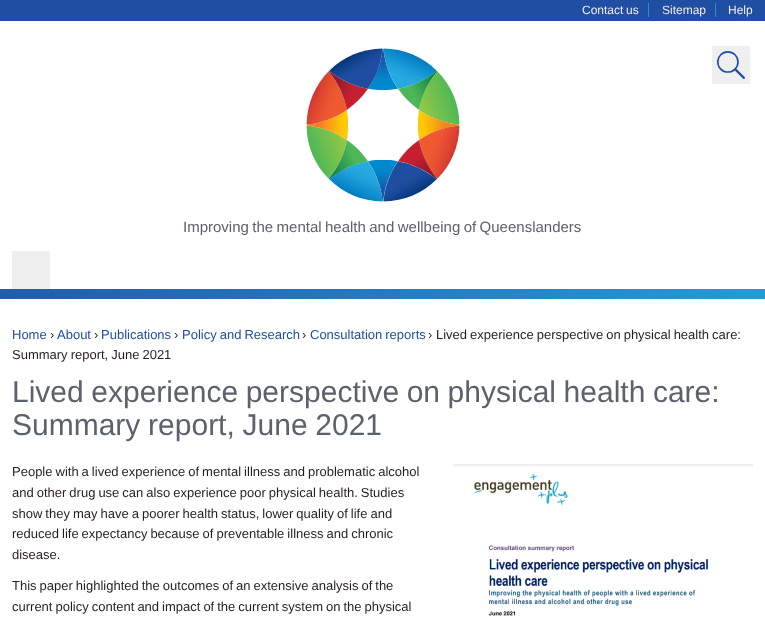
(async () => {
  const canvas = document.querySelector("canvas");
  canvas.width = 765;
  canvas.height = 626;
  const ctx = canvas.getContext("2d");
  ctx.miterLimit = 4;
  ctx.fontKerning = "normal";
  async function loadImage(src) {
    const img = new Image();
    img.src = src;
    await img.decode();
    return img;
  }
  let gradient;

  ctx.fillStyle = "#ffffff";
  ctx.fillRect(0, 0, 765, 626);
  for (const [x, y, w, h, color] of [
    [0, 0, 765, 21, "#204ea3"],
    [648, 3, 1, 14, "#2492d1"],
    [715, 3, 1, 14, "#2492d1"],
    [712, 46, 38, 38, "#efefef"],
  ]) {
    ctx.fillStyle = color;
    ctx.fillRect(x, y, w, h);
  }
  ctx.drawImage(await loadImage("img/1.png"), 717, 51, 28, 28);
  ctx.drawImage(await loadImage("img/2.png"), 306, 48, 154, 154);
  ctx.fillRect(12, 251, 38, 38);
  gradient = ctx.createLinearGradient(0, 294, 765, 294);
  gradient.addColorStop(0, "#225cad");
  gradient.addColorStop(1, "#2799d7");
  ctx.fillStyle = gradient;
  ctx.fillRect(0, 289, 765, 10);
  ctx.drawImage(await loadImage("img/3.png"), 453, 464, 300, 152);
  ctx.wordSpacing = "-0.6px";
  ctx.font = "12px Liberation Sans";
  ctx.fillStyle = "#eeeeee";
  ctx.fillText("Contact us", 582, 14);
  ctx.wordSpacing = "0px";
  ctx.fillText("Sitemap", 662, 14);
  ctx.fillText("Help", 728, 14);
  ctx.wordSpacing = "-0.75px";
  ctx.font = "15px Liberation Sans";
  ctx.fillStyle = "#5c626c";
  ctx.fillText("Improving the mental health and wellbeing of Queenslanders", 183, 232);
  ctx.wordSpacing = "0px";
  ctx.font = "13px Liberation Sans";
  ctx.fillStyle = "#1f4ea1";
  ctx.fillText("Home", 12, 339);
  ctx.fillStyle = "#231f20";
  ctx.fillText("›", 50, 339);
  ctx.fillStyle = "#1f4ea1";
  ctx.fillText("About", 57, 339);
  ctx.fillStyle = "#231f20";
  ctx.fillText("›", 94, 339);
  ctx.fillStyle = "#1f4ea1";
  ctx.fillText("Publications", 101, 339);
  ctx.fillStyle = "#231f20";
  ctx.fillText("›", 174, 339);
  ctx.wordSpacing = "-0.6px";
  ctx.fillStyle = "#1f4ea1";
  ctx.fillText("Policy and Research", 182, 339);
  ctx.wordSpacing = "0px";
  ctx.fillStyle = "#231f20";
  ctx.fillText("›", 302, 339);
  ctx.wordSpacing = "-0.6px";
  ctx.fillStyle = "#1f4ea1";
  ctx.fillText("Consultation reports", 310, 339);
  ctx.wordSpacing = "0px";
  ctx.fillStyle = "#231f20";
  ctx.fillText("›", 428, 339);
  ctx.wordSpacing = "-0.6px";
  ctx.fillText("Lived experience perspective on physical health care:", 436, 339);
  ctx.fillText("Summary report, June 2021", 12, 359);
  ctx.wordSpacing = "-0.75px";
  ctx.font = "30px Liberation Sans";
  ctx.fillStyle = "#5c626c";
  ctx.fillText("Lived experience perspective on physical health care:", 12, 402);
  ctx.wordSpacing = "-0.6px";
  ctx.fillText("Summary report, June 2021", 12, 435);
  ctx.font = "13px Liberation Sans";
  ctx.fillStyle = "#231f20";
  for (const [text, x, y] of [
    ["People with a lived experience of mental illness and problematic alcohol", 12, 476],
    ["and other drug use can also experience poor physical health. Studies", 12, 497],
    ["show they may have a poorer health status, lower quality of life and", 12, 518],
    ["reduced life expectancy because of preventable illness and chronic", 12, 538],
  ]) {
    ctx.fillText(text, x, y);
  }
  ctx.wordSpacing = "0px";
  ctx.fillText("disease.", 12, 559);
  ctx.wordSpacing = "-0.6px";
  ctx.fillText("This paper highlighted the outcomes of an extensive analysis of the", 12, 590);
  ctx.fillText("current policy content and impact of the current system on the physical", 12, 611);
})();
